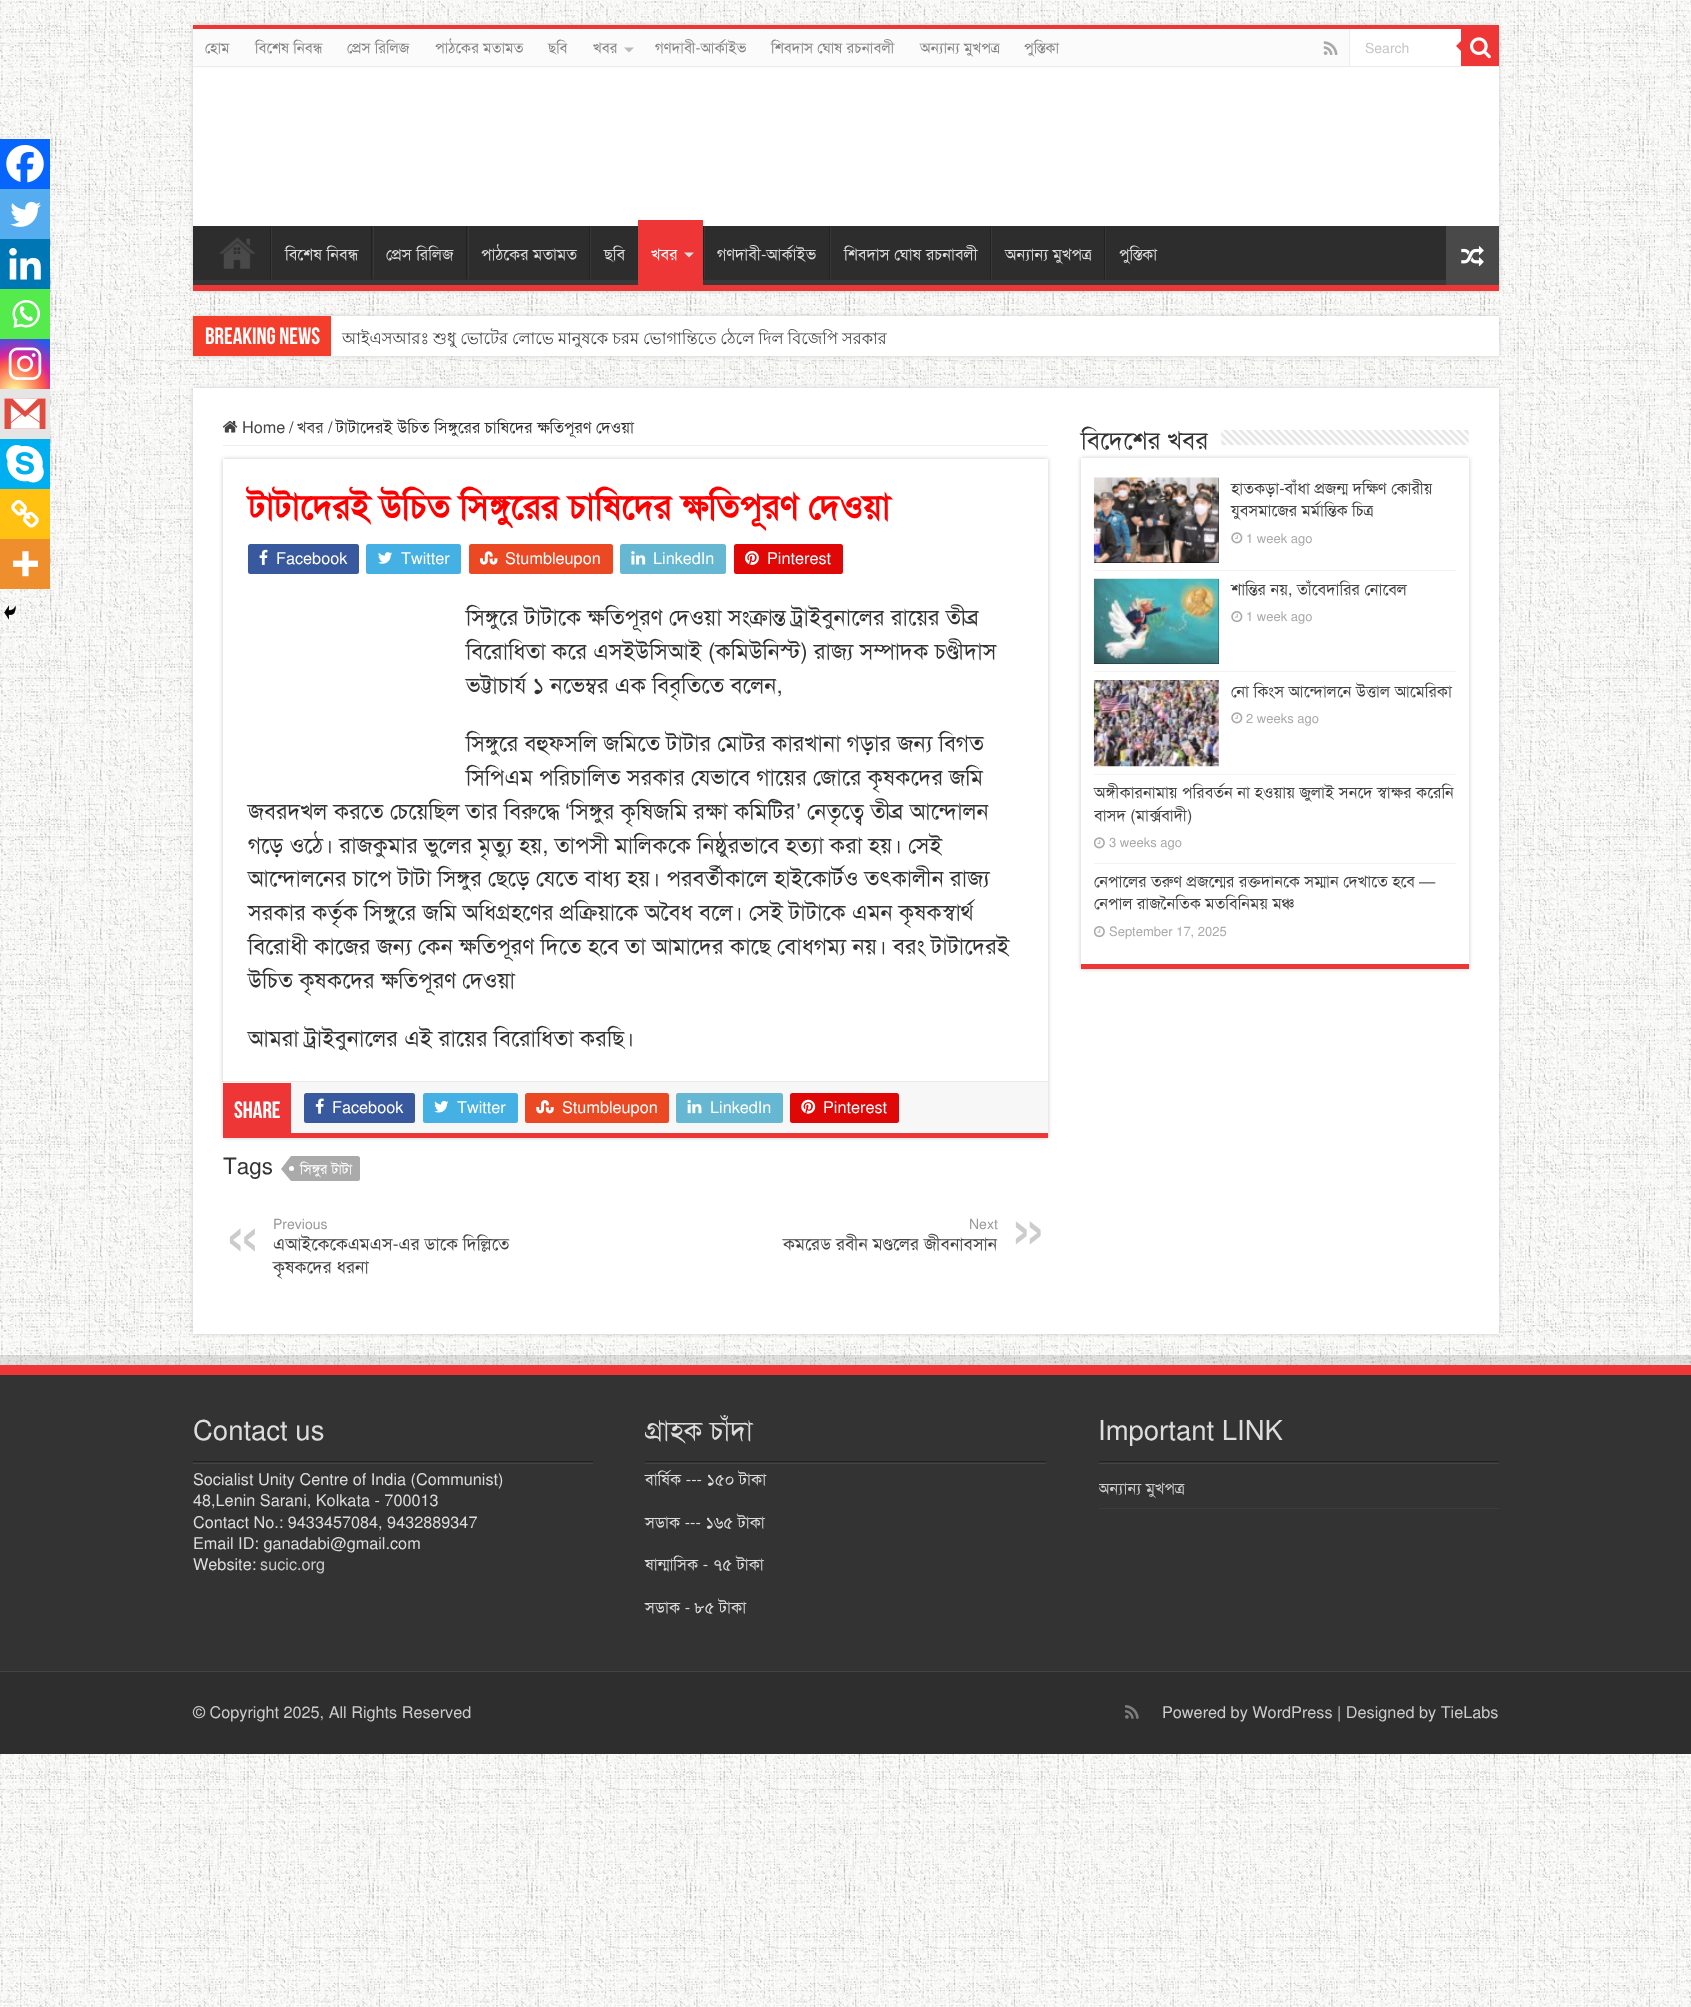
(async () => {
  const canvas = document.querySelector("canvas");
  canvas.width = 1691;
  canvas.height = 2007;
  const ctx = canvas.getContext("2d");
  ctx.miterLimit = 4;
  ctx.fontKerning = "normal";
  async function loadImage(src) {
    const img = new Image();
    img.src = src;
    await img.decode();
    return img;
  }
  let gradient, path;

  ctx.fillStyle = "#ffffff";
  ctx.fillRect(0, 0, 1691, 2007);
  ctx.drawImage(await loadImage("img/1.png"), 0, 0, 1691, 2007);
  ctx.fillStyle = "#cacaca";
  ctx.filter = "blur(2px)";
  ctx.beginPath();
  ctx.rect(193, 25, 1306, 266);
  ctx.fill();
  ctx.filter = "none";
  for (const [x, y, w, h, color] of [
    [193, 68, 1306, 158, "#ffffff"],
    [193, 25, 1306, 4, "#ef3636"],
    [193, 29, 1306, 39, "#fbfbfb"],
    [193, 66, 1306, 1, "#ececec"],
  ]) {
    ctx.fillStyle = color;
    ctx.fillRect(x, y, w, h);
  }
  ctx.fillStyle = "#bbbbbb";
  path = new Path2D("M624 47.5H634L629 52.5Z");
  ctx.fill(path);
  ctx.drawImage(await loadImage("img/2.png"), 1323, 41, 15, 14);
  for (const [x, y, w, h, color] of [
    [1350, 29, 111, 37, "#ffffff"],
    [1349, 29, 1, 37, "#ececec"],
    [1461, 29, 38, 37, "#ef3636"],
  ]) {
    ctx.fillStyle = color;
    ctx.fillRect(x, y, w, h);
  }
  ctx.drawImage(await loadImage("img/3.png"), 1470, 37, 21, 22);
  path = new Path2D("M1461 41V51L1456 46Z");
  ctx.fill(path);
  ctx.fillStyle = "#2d2d2d";
  ctx.fillRect(193, 226, 1253, 54);
  ctx.save();
  ctx.beginPath();
  ctx.rect(193, 226, 1306, 59);
  ctx.clip();
  ctx.fillStyle = "#393939";
  path = new Path2D("M69 102H1622V409H69ZM191 219H1498C1498 219 1499 219 1499 220V279C1499 279 1498 280 1498 280H191C191 280 190 279 190 279V220C190 219 191 219 191 219Z");
  ctx.fill(path, "evenodd");
  ctx.restore();
  ctx.fillStyle = "#ef3636";
  ctx.fillRect(193, 285, 1306, 6);
  ctx.drawImage(await loadImage("img/4.png"), 219, 237, 36, 32);
  for (const [x, y, w, h, color] of [
    [270, 226, 1, 53, "#222222"],
    [271, 226, 1, 53, "#383838"],
    [371, 226, 1, 53, "#222222"],
    [373, 226, 1, 53, "#383838"],
    [466, 226, 1, 53, "#222222"],
    [468, 226, 1, 53, "#383838"],
    [589, 226, 1, 53, "#222222"],
    [590, 226, 1, 53, "#383838"],
    [638, 220, 65, 65, "#ef3636"],
  ]) {
    ctx.fillStyle = color;
    ctx.fillRect(x, y, w, h);
  }
  ctx.fillStyle = "#dddddd";
  path = new Path2D("M684 252.5H694L689 257.5Z");
  ctx.fill(path);
  for (const [x, y, w, h, color] of [
    [703, 226, 1, 53, "#222222"],
    [704, 226, 1, 53, "#383838"],
    [829, 226, 1, 53, "#222222"],
    [830, 226, 1, 53, "#383838"],
    [990, 226, 1, 53, "#222222"],
    [991, 226, 1, 53, "#383838"],
    [1104, 226, 1, 53, "#222222"],
    [1105, 226, 1, 53, "#383838"],
    [1446, 226, 53, 59, "#494949"],
  ]) {
    ctx.fillStyle = color;
    ctx.fillRect(x, y, w, h);
  }
  ctx.drawImage(await loadImage("img/5.png"), 1461, 246, 23, 21);
  ctx.fillStyle = "#cacaca";
  ctx.filter = "blur(2px)";
  ctx.beginPath();
  ctx.rect(193, 316, 1306, 40);
  ctx.fill();
  ctx.filter = "none";
  ctx.fillStyle = "#ffffff";
  ctx.fillRect(331, 316, 1168, 40);
  ctx.fillStyle = "#f43d2a";
  ctx.fillRect(193, 316, 138, 40);
  ctx.fillStyle = "#cacaca";
  ctx.filter = "blur(2px)";
  ctx.beginPath();
  ctx.rect(193, 388, 1306, 946);
  ctx.fill();
  ctx.filter = "none";
  ctx.fillStyle = "#ffffff";
  ctx.fillRect(193, 388, 1306, 946);
  ctx.fillStyle = "#eeeeee";
  ctx.fillRect(223, 445, 825, 1);
  ctx.drawImage(await loadImage("img/6.png"), 222, 420, 16, 13);
  ctx.fillStyle = "#cacaca";
  ctx.filter = "blur(2px)";
  ctx.beginPath();
  ctx.rect(223, 459, 825, 679);
  ctx.fill();
  ctx.filter = "none";
  for (const [x, y, w, h, color] of [
    [223, 459, 825, 622, "#ffffff"],
    [223, 1133, 825, 5, "#ef3636"],
    [0, 139, 50, 50, "#0765fe"],
  ]) {
    ctx.fillStyle = color;
    ctx.fillRect(x, y, w, h);
  }
  ctx.drawImage(await loadImage("img/7.png"), 6, 145, 38, 38);
  ctx.fillStyle = "#55acee";
  ctx.fillRect(0, 189, 50, 50);
  ctx.drawImage(await loadImage("img/8.png"), 10, 201, 31, 26);
  ctx.fillStyle = "#0077b5";
  ctx.fillRect(0, 239, 50, 50);
  ctx.drawImage(await loadImage("img/9.png"), 9, 248, 32, 32);
  ctx.fillStyle = "#55eb4c";
  ctx.fillRect(0, 289, 50, 50);
  ctx.drawImage(await loadImage("img/10.png"), 12, 300, 28, 28);
  gradient = ctx.createRadialGradient(15, 392, 0, 15, 392, 64);
  gradient.addColorStop(0, "#fdf497");
  gradient.addColorStop(0.05, "#fdf497");
  gradient.addColorStop(0.45, "#fd5949");
  gradient.addColorStop(0.6, "#d6249f");
  gradient.addColorStop(0.9, "#285aeb");
  ctx.fillStyle = gradient;
  ctx.fillRect(0, 339, 50, 50);
  ctx.drawImage(await loadImage("img/11.png"), 8, 347, 34, 33);
  ctx.fillStyle = "#e5e5e5";
  ctx.fillRect(0, 389, 50, 50);
  ctx.drawImage(await loadImage("img/12.png"), 4, 398, 42, 31);
  ctx.fillStyle = "#00aff0";
  ctx.fillRect(0, 439, 50, 50);
  ctx.drawImage(await loadImage("img/13.png"), 6, 445, 38, 38);
  ctx.fillStyle = "#ffc112";
  ctx.fillRect(0, 489, 50, 50);
  ctx.drawImage(await loadImage("img/14.png"), 11, 500, 28, 28);
  ctx.fillStyle = "#ee8e2d";
  ctx.fillRect(0, 539, 50, 50);
  ctx.drawImage(await loadImage("img/15.png"), 12, 551, 26, 26);
  ctx.drawImage(await loadImage("img/16.png"), 4, 605, 12, 15);
  ctx.fillStyle = "#39599f";
  ctx.beginPath();
  ctx.roundRect(248, 544, 111, 30, 2.5);
  ctx.fill();
  ctx.drawImage(await loadImage("img/17.png"), 259, 549, 9, 16);
  ctx.fillStyle = "#45b0e3";
  ctx.beginPath();
  ctx.roundRect(366, 544, 95, 30, 2.5);
  ctx.fill();
  ctx.drawImage(await loadImage("img/18.png"), 378, 552, 14, 12);
  ctx.fillStyle = "#eb4924";
  ctx.beginPath();
  ctx.roundRect(469, 544, 144, 30, 2.5);
  ctx.fill();
  ctx.drawImage(await loadImage("img/19.png"), 480, 551, 18, 14);
  ctx.fillStyle = "#65b7d2";
  ctx.beginPath();
  ctx.roundRect(620, 544, 106, 30, 2.5);
  ctx.fill();
  ctx.drawImage(await loadImage("img/20.png"), 631, 551, 15, 14);
  ctx.fillStyle = "#e00707";
  ctx.beginPath();
  ctx.roundRect(734, 544, 109, 30, 2.5);
  ctx.fill();
  ctx.drawImage(await loadImage("img/21.png"), 745, 551, 14, 14);
  for (const [x, y, w, h, color] of [
    [223, 1082, 825, 51, "#f7f7f7"],
    [223, 1081, 825, 1, "#eaeaea"],
    [223, 1083, 68, 50, "#ef3636"],
  ]) {
    ctx.fillStyle = color;
    ctx.fillRect(x, y, w, h);
  }
  ctx.fillStyle = "#39599f";
  ctx.beginPath();
  ctx.roundRect(304, 1093, 111, 30, 2.5);
  ctx.fill();
  ctx.drawImage(await loadImage("img/22.png"), 315, 1098, 9, 16);
  ctx.fillStyle = "#45b0e3";
  ctx.beginPath();
  ctx.roundRect(423, 1093, 95, 30, 2.5);
  ctx.fill();
  ctx.drawImage(await loadImage("img/23.png"), 434, 1100, 15, 13);
  ctx.fillStyle = "#eb4924";
  ctx.beginPath();
  ctx.roundRect(525, 1093, 144, 30, 2.5);
  ctx.fill();
  ctx.drawImage(await loadImage("img/24.png"), 536, 1100, 18, 14);
  ctx.fillStyle = "#65b7d2";
  ctx.beginPath();
  ctx.roundRect(676, 1093, 107, 30, 2.5);
  ctx.fill();
  ctx.drawImage(await loadImage("img/25.png"), 687, 1099, 15, 15);
  ctx.fillStyle = "#e00707";
  ctx.beginPath();
  ctx.roundRect(790, 1093, 109, 30, 2.5);
  ctx.fill();
  ctx.drawImage(await loadImage("img/26.png"), 801, 1099, 15, 15);
  ctx.fillStyle = "#aaaaaa";
  ctx.beginPath();
  ctx.roundRect(291, 1156, 69, 25, [0, 2.5, 2.5, 0]);
  ctx.fill();
  path = new Path2D("M291 1156V1181L281 1169Z");
  ctx.fill(path);
  ctx.fillStyle = "#ffffff";
  ctx.beginPath();
  ctx.arc(291.5, 1168.5, 2.5, 0, Math.PI * 2);
  ctx.fill();
  ctx.drawImage(await loadImage("img/27.png"), 1221, 430, 248, 15);
  ctx.fillStyle = "#cacaca";
  ctx.filter = "blur(2px)";
  ctx.beginPath();
  ctx.rect(1081, 458, 388, 511);
  ctx.fill();
  ctx.filter = "none";
  for (const [x, y, w, h, color] of [
    [1081, 458, 388, 506, "#ffffff"],
    [1081, 964, 388, 5, "#ef3636"],
    [1094, 570, 362, 1, "#f2f2f2"],
    [1094, 478, 125, 85, "#000000"],
  ]) {
    ctx.fillStyle = color;
    ctx.fillRect(x, y, w, h);
  }
  ctx.drawImage(await loadImage("img/28.png"), 1093, 477, 126, 86);
  ctx.drawImage(await loadImage("img/29.png"), 1231, 532, 12, 12);
  ctx.fillStyle = "#f2f2f2";
  ctx.fillRect(1094, 671, 362, 1);
  ctx.fillStyle = "#000000";
  ctx.fillRect(1094, 579, 125, 85);
  ctx.drawImage(await loadImage("img/30.png"), 1093, 578, 126, 86);
  ctx.drawImage(await loadImage("img/31.png"), 1231, 611, 12, 12);
  ctx.fillStyle = "#f2f2f2";
  ctx.fillRect(1094, 774, 362, 1);
  ctx.drawImage(await loadImage("img/32.png"), 1093, 680, 126, 87);
  ctx.drawImage(await loadImage("img/29.png"), 1231, 712, 12, 12);
  ctx.fillRect(1094, 863, 362, 1);
  ctx.drawImage(await loadImage("img/33.png"), 1094, 837, 11, 12);
  ctx.drawImage(await loadImage("img/34.png"), 1094, 926, 11, 12);
  for (const [x, y, w, h, color] of [
    [0, 1355, 1691, 10, "rgba(0, 0, 0, 0.1)"],
    [0, 1375, 1691, 296, "#333333"],
    [0, 1365, 1691, 10, "#ef3636"],
    [193, 1461, 400, 1, "#222222"],
    [193, 1463, 400, 1, "#444444"],
    [645, 1461, 401, 1, "#222222"],
    [645, 1463, 401, 1, "#444444"],
    [1099, 1461, 400, 1, "#222222"],
    [1099, 1463, 400, 1, "#444444"],
    [1099, 1508, 400, 1, "#3c3c3c"],
    [0, 1672, 1691, 82, "#2e2e2e"],
    [0, 1671, 1691, 1, "#444444"],
  ]) {
    ctx.fillStyle = color;
    ctx.fillRect(x, y, w, h);
  }
  ctx.drawImage(await loadImage("img/35.png"), 1125, 1705, 14, 14);
  ctx.font = "15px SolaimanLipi";
  ctx.fillStyle = "#838383";
  for (const [text, x, y] of [
    ["হোম", 205, 53],
    ["বিশেষ নিবন্ধ", 255, 53],
    ["প্রেস রিলিজ", 347, 53],
    ["পাঠকের মতামত", 435, 53],
    ["ছবি", 548, 53],
    ["খবর", 593, 53],
    ["গণদাবী-আর্কাইভ", 655, 53],
    ["শিবদাস ঘোষ রচনাবলী", 771, 53],
    ["অন্যান্য মুখপত্র", 920, 53],
    ["পুস্তিকা", 1024, 53],
  ]) {
    ctx.fillText(text, x, y);
  }
  ctx.font = "14px SolaimanLipi";
  ctx.fillStyle = "#c5c5c5";
  ctx.fillText("Search", 1365, 53);
  ctx.font = "16.25px SolaimanLipi";
  ctx.fillStyle = "#dddddd";
  for (const [text, x, y] of [
    ["বিশেষ নিবন্ধ", 285, 260],
    ["প্রেস রিলিজ", 386, 260],
    ["পাঠকের মতামত", 481, 260],
    ["ছবি", 604, 260],
  ]) {
    ctx.fillText(text, x, y);
  }
  ctx.fillStyle = "#ffffff";
  ctx.fillText("খবর", 651, 260);
  ctx.fillStyle = "#dddddd";
  for (const [text, x, y] of [
    ["গণদাবী-আর্কাইভ", 717, 260],
    ["শিবদাস ঘোষ রচনাবলী", 844, 260],
    ["অন্যান্য মুখপত্র", 1005, 260],
    ["পুস্তিকা", 1119, 260],
  ]) {
    ctx.fillText(text, x, y);
  }
  ctx.font = "bold 23.5px Bebas Neue";
  ctx.fillStyle = "#ffffff";
  ctx.fillText("Breaking News", 205, 344);
  ctx.wordSpacing = "-0.5px";
  ctx.font = "16.25px Lohit Bengali";
  ctx.fillStyle = "#444444";
  ctx.fillText("আইএসআরঃ শুধু ভোটের লোভে মানুষকে চরম ভোগান্তিতে ঠেলে দিল বিজেপি সরকার", 342, 344);
  ctx.wordSpacing = "0px";
  ctx.font = "16.25px SolaimanLipi";
  ctx.fillText("Home", 242, 433);
  ctx.fillStyle = "#333333";
  ctx.fillText("/", 289, 433);
  ctx.fillStyle = "#444444";
  ctx.fillText("খবর", 297, 433);
  ctx.fillStyle = "#333333";
  ctx.fillText("/", 328, 433);
  ctx.fillText("টাটাদেরই উচিত সিঙ্গুরের চাষিদের ক্ষতিপূরণ দেওয়া", 336, 433);
  ctx.font = "bold 35px SolaimanLipi";
  ctx.fillStyle = "#ff0000";
  ctx.fillText("টাটাদেরই উচিত সিঙ্গুরের চাষিদের ক্ষতিপূরণ দেওয়া", 248, 519);
  ctx.font = "16.25px SolaimanLipi";
  ctx.fillStyle = "#ffffff";
  for (const [text, x, y] of [
    ["Facebook", 276, 564],
    ["Twitter", 401, 564],
    ["Stumbleupon", 505, 564],
    ["LinkedIn", 653, 564],
    ["Pinterest", 767, 564],
  ]) {
    ctx.fillText(text, x, y);
  }
  ctx.font = "22.5px SolaimanLipi";
  ctx.fillStyle = "#333333";
  for (const [text, x, y] of [
    ["সিঙ্গুরে টাটাকে ক্ষতিপূরণ দেওয়া সংক্রান্ত ট্রাইবুনালের রায়ের তীব্র", 466, 625],
    ["বিরোধিতা করে এসইউসিআই (কমিউনিস্ট) রাজ্য সম্পাদক চণ্ডীদাস", 466, 659],
    ["ভট্টাচার্য ১ নভেম্বর এক বিবৃতিতে বলেন,", 466, 693],
    ["সিঙ্গুরে বহুফসলি জমিতে টাটার মোটর কারখানা গড়ার জন্য বিগত", 466, 751],
    ["সিপিএম পরিচালিত সরকার যেভাবে গায়ের জোরে কৃষকদের জমি", 466, 785],
    ["জবরদখল করতে চেয়েছিল তার বিরুদ্ধে", 248, 819],
  ]) {
    ctx.fillText(text, x, y);
  }
  ctx.font = "22.5px Liberation Sans";
  ctx.fillText("‘", 565, 819);
  ctx.font = "22.5px SolaimanLipi";
  ctx.fillText("সিঙ্গুর কৃষিজমি রক্ষা কমিটির", 570, 819);
  ctx.font = "22.5px Liberation Sans";
  ctx.fillText("’", 796, 819);
  ctx.font = "22.5px SolaimanLipi";
  for (const [text, x, y] of [
    ["নেতৃত্বে তীব্র আন্দোলন", 807, 819],
    ["গড়ে ওঠে। রাজকুমার ভুলের মৃত্যু হয়, তাপসী মালিককে নিষ্ঠুরভাবে হত্যা করা হয়। সেই", 248, 853],
    ["আন্দোলনের চাপে টাটা সিঙ্গুর ছেড়ে যেতে বাধ্য হয়। পরবর্তীকালে হাইকোর্টও তৎকালীন রাজ্য", 248, 886],
    ["সরকার কর্তৃক সিঙ্গুরে জমি অধিগ্রহণের প্রক্রিয়াকে অবৈধ বলে। সেই টাটাকে এমন কৃষকস্বার্থ", 248, 920],
    ["বিরোধী কাজের জন্য কেন ক্ষতিপূরণ দিতে হবে তা আমাদের কাছে বোধগম্য নয়। বরং টাটাদেরই", 248, 954],
    ["উচিত কৃষকদের ক্ষতিপূরণ দেওয়া", 248, 988],
    ["আমরা ট্রাইবুনালের এই রায়ের বিরোধিতা করছি।", 248, 1046],
  ]) {
    ctx.fillText(text, x, y);
  }
  ctx.font = "bold 23.5px Bebas Neue";
  ctx.fillStyle = "#ffffff";
  ctx.fillText("Share", 234, 1118);
  ctx.font = "16.25px SolaimanLipi";
  for (const [text, x, y] of [
    ["Facebook", 332, 1113],
    ["Twitter", 457, 1113],
    ["Stumbleupon", 562, 1113],
    ["LinkedIn", 710, 1113],
    ["Pinterest", 823, 1113],
  ]) {
    ctx.fillText(text, x, y);
  }
  ctx.font = "22.5px SolaimanLipi";
  ctx.fillStyle = "#333333";
  ctx.fillText("Tags", 223, 1174);
  ctx.font = "14px SolaimanLipi";
  ctx.fillStyle = "#ffffff";
  ctx.fillText("সিঙ্গুর টাটা", 300, 1174);
  ctx.fillStyle = "#999999";
  ctx.fillText("Previous", 273, 1229);
  ctx.font = "70px SolaimanLipi";
  ctx.fillStyle = "#cccccc";
  ctx.fillText("«", 223, 1259);
  ctx.font = "17.5px SolaimanLipi";
  ctx.fillStyle = "#444444";
  ctx.fillText("এআইকেকেএমএস-এর ডাকে দিল্লিতে", 273, 1250);
  ctx.fillText("কৃষকদের ধরনা", 273, 1273);
  ctx.font = "14px SolaimanLipi";
  ctx.fillStyle = "#999999";
  ctx.fillText("Next", 969, 1229);
  ctx.font = "70px SolaimanLipi";
  ctx.fillStyle = "#cccccc";
  ctx.fillText("»", 1009, 1252);
  ctx.font = "17.5px SolaimanLipi";
  ctx.fillStyle = "#444444";
  ctx.fillText("কমরেড রবীন মণ্ডলের জীবনাবসান", 783, 1250);
  ctx.font = "25px SolaimanLipi";
  ctx.fillStyle = "#333333";
  ctx.fillText("বিদেশের খবর", 1081, 449);
  ctx.font = "16.25px SolaimanLipi";
  ctx.fillStyle = "#444444";
  ctx.fillText("হাতকড়া-বাঁধা প্রজন্ম দক্ষিণ কোরীয়", 1231, 494);
  ctx.fillText("যুবসমাজের মর্মান্তিক চিত্র", 1231, 516);
  ctx.font = "13px SolaimanLipi";
  ctx.fillStyle = "#aaaaaa";
  ctx.fillText("1 week ago", 1246, 543);
  ctx.font = "16.25px SolaimanLipi";
  ctx.fillStyle = "#444444";
  ctx.fillText("শান্তির নয়, তাঁবেদারির নোবেল", 1231, 595);
  ctx.font = "13px SolaimanLipi";
  ctx.fillStyle = "#aaaaaa";
  ctx.fillText("1 week ago", 1246, 621);
  ctx.font = "16.25px SolaimanLipi";
  ctx.fillStyle = "#444444";
  ctx.fillText("নো কিংস আন্দোলনে উত্তাল আমেরিকা", 1231, 697);
  ctx.font = "13px SolaimanLipi";
  ctx.fillStyle = "#aaaaaa";
  ctx.fillText("2 weeks ago", 1246, 723);
  ctx.font = "16.25px SolaimanLipi";
  ctx.fillStyle = "#444444";
  ctx.fillText("অঙ্গীকারনামায় পরিবর্তন না হওয়ায় জুলাই সনদে স্বাক্ষর করেনি", 1094, 798);
  ctx.save();
  ctx.beginPath();
  ctx.rect(1094, 775, 362, 88);
  ctx.clip();
  ctx.fillText("বাসদ (মার্ক্সবাদী)", 1094, 821);
  ctx.restore();
  ctx.font = "13px SolaimanLipi";
  ctx.fillStyle = "#aaaaaa";
  ctx.fillText("3 weeks ago", 1109, 847);
  ctx.save();
  ctx.beginPath();
  ctx.rect(1094, 864, 362, 87);
  ctx.clip();
  ctx.font = "16.25px SolaimanLipi";
  ctx.fillStyle = "#444444";
  ctx.fillText("নেপালের তরুণ প্রজন্মের রক্তদানকে সম্মান দেখাতে হবে", 1094, 887);
  ctx.restore();
  ctx.font = "16.25px Liberation Sans";
  ctx.fillStyle = "#444444";
  ctx.fillText("—", 1419, 887);
  ctx.save();
  ctx.beginPath();
  ctx.rect(1094, 864, 362, 87);
  ctx.clip();
  ctx.font = "16.25px SolaimanLipi";
  ctx.fillText("নেপাল রাজনৈতিক মতবিনিময় মঞ্চ", 1094, 909);
  ctx.restore();
  ctx.font = "13px SolaimanLipi";
  ctx.fillStyle = "#aaaaaa";
  ctx.fillText("September 17, 2025", 1109, 936);
  ctx.font = "27.5px SolaimanLipi";
  ctx.fillStyle = "#dddddd";
  ctx.fillText("Contact us", 193, 1440);
  ctx.font = "16.25px SolaimanLipi";
  for (const [text, x, y] of [
    ["Socialist Unity Centre of India (Communist)", 193, 1485],
    ["48,Lenin Sarani, Kolkata - 700013", 193, 1506],
    ["Contact No.: 9433457084, 9432889347", 193, 1528],
    ["Email ID: ganadabi@gmail.com", 193, 1549],
    ["Website:", 193, 1570],
  ]) {
    ctx.fillText(text, x, y);
  }
  ctx.fillStyle = "#cccccc";
  ctx.fillText("sucic.org", 260, 1570);
  ctx.font = "27.5px SolaimanLipi";
  ctx.fillStyle = "#dddddd";
  ctx.fillText("গ্রাহক চাঁদা", 645, 1440);
  ctx.font = "16.25px SolaimanLipi";
  for (const [text, x, y] of [
    ["বার্ষিক --- ১৫০ টাকা", 645, 1485],
    ["সডাক --- ১৬৫ টাকা", 645, 1528],
    ["ষান্মাসিক - ৭৫ টাকা", 645, 1570],
    ["সডাক - ৮৫ টাকা", 645, 1613],
  ]) {
    ctx.fillText(text, x, y);
  }
  ctx.font = "27.5px SolaimanLipi";
  ctx.fillText("Important LINK", 1098, 1440);
  ctx.save();
  ctx.beginPath();
  ctx.rect(1099, 1470, 400, 38);
  ctx.clip();
  ctx.font = "16.25px SolaimanLipi";
  ctx.fillStyle = "#cccccc";
  ctx.fillText("অন্যান্য মুখপত্র", 1098, 1494);
  ctx.restore();
  ctx.font = "16.25px SolaimanLipi";
  ctx.fillStyle = "#cccccc";
  ctx.fillText("© Copyright 2025, All Rights Reserved", 193, 1718);
  ctx.fillText("Powered by WordPress | Designed by TieLabs", 1162, 1718);
})();
